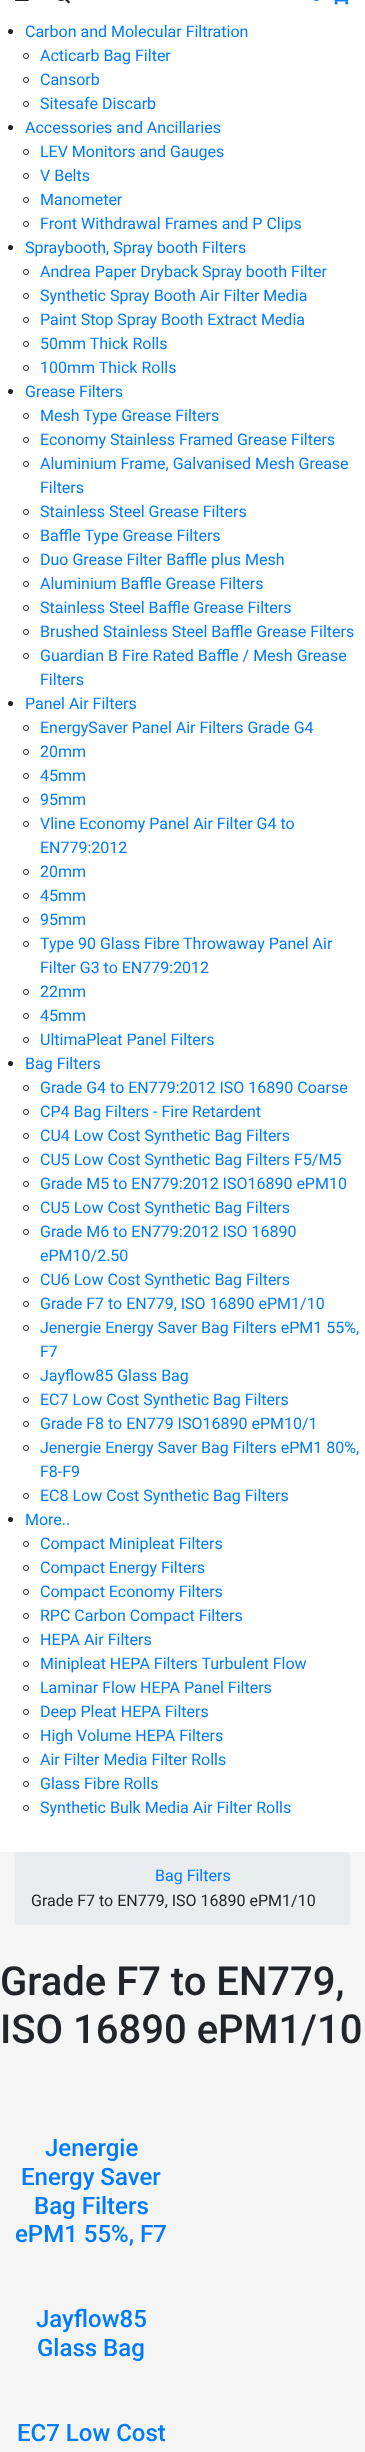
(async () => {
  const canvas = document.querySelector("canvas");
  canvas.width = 365;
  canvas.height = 2452;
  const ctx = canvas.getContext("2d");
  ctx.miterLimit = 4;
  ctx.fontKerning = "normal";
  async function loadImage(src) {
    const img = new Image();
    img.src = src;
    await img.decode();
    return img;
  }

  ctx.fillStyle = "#ffffff";
  ctx.fillRect(0, 0, 365, 2452);
  ctx.drawImage(await loadImage("img/1.png"), 15, 0, 14, 1);
  ctx.drawImage(await loadImage("img/2.png"), 58, 0, 12, 4);
  ctx.drawImage(await loadImage("img/3.png"), 313, 0, 6, 1);
  ctx.drawImage(await loadImage("img/4.png"), 334, 0, 15, 5);
  ctx.fillStyle = "#212529";
  ctx.beginPath();
  ctx.arc(10.5, 31.5, 2.5, 0, Math.PI * 2);
  ctx.fill();
  ctx.beginPath();
  ctx.arc(26, 56, 2.5, 0, Math.PI * 2);
  ctx.strokeStyle = "#212529";
  ctx.stroke();
  ctx.beginPath();
  ctx.arc(26, 80, 2.5, 0, Math.PI * 2);
  ctx.stroke();
  ctx.beginPath();
  ctx.arc(26, 104, 2.5, 0, Math.PI * 2);
  ctx.stroke();
  ctx.beginPath();
  ctx.arc(10.5, 127.5, 2.5, 0, Math.PI * 2);
  ctx.fill();
  ctx.beginPath();
  ctx.arc(26, 152, 2.5, 0, Math.PI * 2);
  ctx.stroke();
  ctx.beginPath();
  ctx.arc(26, 176, 2.5, 0, Math.PI * 2);
  ctx.stroke();
  ctx.beginPath();
  ctx.arc(26, 200, 2.5, 0, Math.PI * 2);
  ctx.stroke();
  ctx.beginPath();
  ctx.arc(26, 224, 2.5, 0, Math.PI * 2);
  ctx.stroke();
  ctx.beginPath();
  ctx.arc(10.5, 247.5, 2.5, 0, Math.PI * 2);
  ctx.fill();
  ctx.beginPath();
  ctx.arc(26, 272, 2.5, 0, Math.PI * 2);
  ctx.stroke();
  ctx.beginPath();
  ctx.arc(26, 296, 2.5, 0, Math.PI * 2);
  ctx.stroke();
  ctx.beginPath();
  ctx.arc(26, 320, 2.5, 0, Math.PI * 2);
  ctx.stroke();
  ctx.beginPath();
  ctx.arc(26, 344, 2.5, 0, Math.PI * 2);
  ctx.stroke();
  ctx.beginPath();
  ctx.arc(26, 368, 2.5, 0, Math.PI * 2);
  ctx.stroke();
  ctx.beginPath();
  ctx.arc(10.5, 391.5, 2.5, 0, Math.PI * 2);
  ctx.fill();
  ctx.beginPath();
  ctx.arc(26, 416, 2.5, 0, Math.PI * 2);
  ctx.stroke();
  ctx.beginPath();
  ctx.arc(26, 440, 2.5, 0, Math.PI * 2);
  ctx.stroke();
  ctx.beginPath();
  ctx.arc(26, 464, 2.5, 0, Math.PI * 2);
  ctx.stroke();
  ctx.beginPath();
  ctx.arc(26, 512, 2.5, 0, Math.PI * 2);
  ctx.stroke();
  ctx.beginPath();
  ctx.arc(26, 536, 2.5, 0, Math.PI * 2);
  ctx.stroke();
  ctx.beginPath();
  ctx.arc(26, 560, 2.5, 0, Math.PI * 2);
  ctx.stroke();
  ctx.beginPath();
  ctx.arc(26, 584, 2.5, 0, Math.PI * 2);
  ctx.stroke();
  ctx.beginPath();
  ctx.arc(26, 608, 2.5, 0, Math.PI * 2);
  ctx.stroke();
  ctx.beginPath();
  ctx.arc(26, 632, 2.5, 0, Math.PI * 2);
  ctx.stroke();
  ctx.beginPath();
  ctx.arc(26, 656, 2.5, 0, Math.PI * 2);
  ctx.stroke();
  ctx.beginPath();
  ctx.arc(10.5, 703.5, 2.5, 0, Math.PI * 2);
  ctx.fill();
  ctx.beginPath();
  ctx.arc(26, 728, 2.5, 0, Math.PI * 2);
  ctx.stroke();
  ctx.beginPath();
  ctx.arc(26, 752, 2.5, 0, Math.PI * 2);
  ctx.stroke();
  ctx.beginPath();
  ctx.arc(26, 776, 2.5, 0, Math.PI * 2);
  ctx.stroke();
  ctx.beginPath();
  ctx.arc(26, 800, 2.5, 0, Math.PI * 2);
  ctx.stroke();
  ctx.beginPath();
  ctx.arc(26, 824, 2.5, 0, Math.PI * 2);
  ctx.stroke();
  ctx.beginPath();
  ctx.arc(26, 872, 2.5, 0, Math.PI * 2);
  ctx.stroke();
  ctx.beginPath();
  ctx.arc(26, 896, 2.5, 0, Math.PI * 2);
  ctx.stroke();
  ctx.beginPath();
  ctx.arc(26, 920, 2.5, 0, Math.PI * 2);
  ctx.stroke();
  ctx.beginPath();
  ctx.arc(26, 944, 2.5, 0, Math.PI * 2);
  ctx.stroke();
  ctx.beginPath();
  ctx.arc(26, 992, 2.5, 0, Math.PI * 2);
  ctx.stroke();
  ctx.beginPath();
  ctx.arc(26, 1016, 2.5, 0, Math.PI * 2);
  ctx.stroke();
  ctx.beginPath();
  ctx.arc(26, 1040, 2.5, 0, Math.PI * 2);
  ctx.stroke();
  ctx.beginPath();
  ctx.arc(10.5, 1063.5, 2.5, 0, Math.PI * 2);
  ctx.fill();
  ctx.beginPath();
  ctx.arc(26, 1088, 2.5, 0, Math.PI * 2);
  ctx.stroke();
  ctx.beginPath();
  ctx.arc(26, 1112, 2.5, 0, Math.PI * 2);
  ctx.stroke();
  ctx.beginPath();
  ctx.arc(26, 1136, 2.5, 0, Math.PI * 2);
  ctx.stroke();
  ctx.beginPath();
  ctx.arc(26, 1160, 2.5, 0, Math.PI * 2);
  ctx.stroke();
  ctx.beginPath();
  ctx.arc(26, 1184, 2.5, 0, Math.PI * 2);
  ctx.stroke();
  ctx.beginPath();
  ctx.arc(26, 1208, 2.5, 0, Math.PI * 2);
  ctx.stroke();
  ctx.beginPath();
  ctx.arc(26, 1232, 2.5, 0, Math.PI * 2);
  ctx.stroke();
  ctx.beginPath();
  ctx.arc(26, 1280, 2.5, 0, Math.PI * 2);
  ctx.stroke();
  ctx.beginPath();
  ctx.arc(26, 1304, 2.5, 0, Math.PI * 2);
  ctx.stroke();
  ctx.beginPath();
  ctx.arc(26, 1328, 2.5, 0, Math.PI * 2);
  ctx.stroke();
  ctx.beginPath();
  ctx.arc(26, 1376, 2.5, 0, Math.PI * 2);
  ctx.stroke();
  ctx.beginPath();
  ctx.arc(26, 1400, 2.5, 0, Math.PI * 2);
  ctx.stroke();
  ctx.beginPath();
  ctx.arc(26, 1424, 2.5, 0, Math.PI * 2);
  ctx.stroke();
  ctx.beginPath();
  ctx.arc(26, 1448, 2.5, 0, Math.PI * 2);
  ctx.stroke();
  ctx.beginPath();
  ctx.arc(26, 1496, 2.5, 0, Math.PI * 2);
  ctx.stroke();
  ctx.beginPath();
  ctx.arc(10.5, 1519.5, 2.5, 0, Math.PI * 2);
  ctx.fill();
  ctx.beginPath();
  ctx.arc(26, 1544, 2.5, 0, Math.PI * 2);
  ctx.stroke();
  ctx.beginPath();
  ctx.arc(26, 1568, 2.5, 0, Math.PI * 2);
  ctx.stroke();
  ctx.beginPath();
  ctx.arc(26, 1592, 2.5, 0, Math.PI * 2);
  ctx.stroke();
  ctx.beginPath();
  ctx.arc(26, 1616, 2.5, 0, Math.PI * 2);
  ctx.stroke();
  ctx.beginPath();
  ctx.arc(26, 1640, 2.5, 0, Math.PI * 2);
  ctx.stroke();
  ctx.beginPath();
  ctx.arc(26, 1664, 2.5, 0, Math.PI * 2);
  ctx.stroke();
  ctx.beginPath();
  ctx.arc(26, 1688, 2.5, 0, Math.PI * 2);
  ctx.stroke();
  ctx.beginPath();
  ctx.arc(26, 1712, 2.5, 0, Math.PI * 2);
  ctx.stroke();
  ctx.beginPath();
  ctx.arc(26, 1736, 2.5, 0, Math.PI * 2);
  ctx.stroke();
  ctx.beginPath();
  ctx.arc(26, 1760, 2.5, 0, Math.PI * 2);
  ctx.stroke();
  ctx.beginPath();
  ctx.arc(26, 1784, 2.5, 0, Math.PI * 2);
  ctx.stroke();
  ctx.beginPath();
  ctx.arc(26, 1808, 2.5, 0, Math.PI * 2);
  ctx.stroke();
  ctx.fillStyle = "#f5f5f5";
  ctx.fillRect(0, 1852, 365, 600);
  ctx.fillStyle = "#e9ecef";
  ctx.beginPath();
  ctx.roundRect(15, 1852, 335, 73, 4);
  ctx.fill();
  ctx.font = "16px Roboto";
  ctx.fillStyle = "#007bff";
  for (const [text, x, y] of [
    ["Carbon and Molecular Filtration", 25, 37],
    ["Acticarb Bag Filter", 40, 61],
    ["Cansorb", 40, 85],
    ["Sitesafe Discarb", 40, 109],
    ["Accessories and Ancillaries", 25, 133],
    ["LEV Monitors and Gauges", 40, 157],
    ["V Belts", 40, 181],
    ["Manometer", 40, 205],
    ["Front Withdrawal Frames and P Clips", 40, 229],
    ["Spraybooth, Spray booth Filters", 25, 253],
    ["Andrea Paper Dryback Spray booth Filter", 40, 277],
    ["Synthetic Spray Booth Air Filter Media", 40, 301],
    ["Paint Stop Spray Booth Extract Media", 40, 325],
    ["50mm Thick Rolls", 40, 349],
    ["100mm Thick Rolls", 40, 373],
    ["Grease Filters", 25, 397],
    ["Mesh Type Grease Filters", 40, 421],
    ["Economy Stainless Framed Grease Filters", 40, 445],
    ["Aluminium Frame, Galvanised Mesh Grease", 40, 469],
    ["Filters", 40, 493],
    ["Stainless Steel Grease Filters", 40, 517],
    ["Baffle Type Grease Filters", 40, 541],
    ["Duo Grease Filter Baffle plus Mesh", 40, 565],
    ["Aluminium Baffle Grease Filters", 40, 589],
    ["Stainless Steel Baffle Grease Filters", 40, 613],
    ["Brushed Stainless Steel Baffle Grease Filters", 40, 637],
    ["Guardian B Fire Rated Baffle / Mesh Grease", 40, 661],
    ["Filters", 40, 685],
    ["Panel Air Filters", 25, 709],
    ["EnergySaver Panel Air Filters Grade G4", 40, 733],
    ["20mm", 40, 757],
    ["45mm", 40, 781],
    ["95mm", 40, 805],
    ["Vline Economy Panel Air Filter G4 to", 40, 829],
    ["EN779:2012", 40, 853],
    ["20mm", 40, 877],
    ["45mm", 40, 901],
    ["95mm", 40, 925],
    ["Type 90 Glass Fibre Throwaway Panel Air", 40, 949],
    ["Filter G3 to EN779:2012", 40, 973],
    ["22mm", 40, 997],
    ["45mm", 40, 1021],
    ["UltimaPleat Panel Filters", 40, 1045],
    ["Bag Filters", 25, 1069],
    ["Grade G4 to EN779:2012 ISO 16890 Coarse", 40, 1093],
    ["CP4 Bag Filters - Fire Retardent", 40, 1117],
    ["CU4 Low Cost Synthetic Bag Filters", 40, 1141],
    ["CU5 Low Cost Synthetic Bag Filters F5/M5", 40, 1165],
    ["Grade M5 to EN779:2012 ISO16890 ePM10", 40, 1189],
    ["CU5 Low Cost Synthetic Bag Filters", 40, 1213],
    ["Grade M6 to EN779:2012 ISO 16890", 40, 1237],
    ["ePM10/2.50", 40, 1261],
    ["CU6 Low Cost Synthetic Bag Filters", 40, 1285],
    ["Grade F7 to EN779, ISO 16890 ePM1/10", 40, 1309],
    ["Jenergie Energy Saver Bag Filters ePM1 55%,", 40, 1333],
    ["F7", 40, 1357],
    ["Jayflow85 Glass Bag", 40, 1381],
    ["EC7 Low Cost Synthetic Bag Filters", 40, 1405],
    ["Grade F8 to EN779 ISO16890 ePM10/1", 40, 1429],
    ["Jenergie Energy Saver Bag Filters ePM1 80%,", 40, 1453],
    ["F8-F9", 40, 1477],
    ["EC8 Low Cost Synthetic Bag Filters", 40, 1501],
    ["More..", 25, 1525],
    ["Compact Minipleat Filters", 40, 1549],
    ["Compact Energy Filters", 40, 1573],
    ["Compact Economy Filters", 40, 1597],
    ["RPC Carbon Compact Filters", 40, 1621],
    ["HEPA Air Filters", 40, 1645],
    ["Minipleat HEPA Filters Turbulent Flow", 40, 1669],
    ["Laminar Flow HEPA Panel Filters", 40, 1693],
    ["Deep Pleat HEPA Filters", 40, 1717],
    ["High Volume HEPA Filters", 40, 1741],
    ["Air Filter Media Filter Rolls", 40, 1765],
    ["Glass Fibre Rolls", 40, 1789],
    ["Synthetic Bulk Media Air Filter Rolls", 40, 1813],
    ["Bag Filters", 155, 1881],
  ]) {
    ctx.fillText(text, x, y);
  }
  ctx.fillStyle = "#212529";
  ctx.fillText("Grade F7 to EN779, ISO 16890 ePM1/10", 31, 1906);
  ctx.font = "500 40px Roboto";
  ctx.fillText("Grade F7 to EN779,", 0, 1995);
  ctx.fillText("ISO 16890 ePM1/10", 0, 2043);
  ctx.font = "500 24px Roboto";
  ctx.fillStyle = "#007bff";
  for (const [text, x, y] of [
    ["Jenergie", 45, 2156],
    ["Energy Saver", 21, 2185],
    ["Bag Filters", 34, 2214],
    ["ePM1 55%, F7", 15, 2242],
    ["Jayflow85", 36, 2327],
    ["Glass Bag", 37, 2356],
    ["EC7 Low Cost", 17, 2441],
  ]) {
    ctx.fillText(text, x, y);
  }
})();
